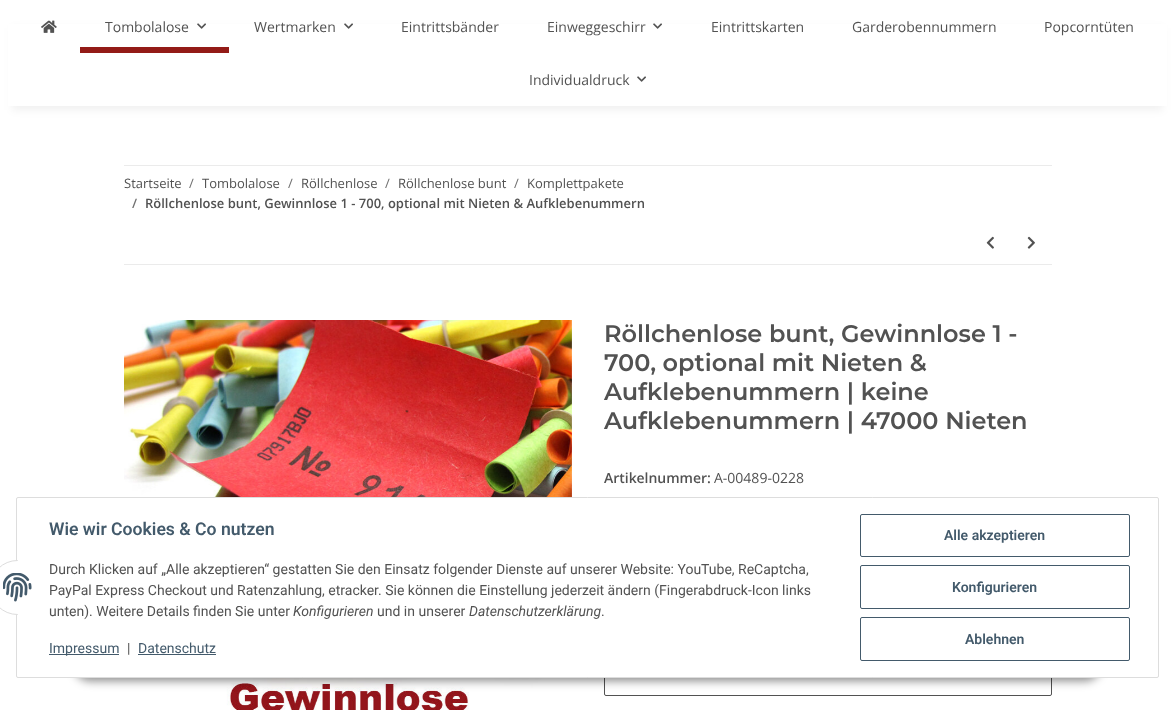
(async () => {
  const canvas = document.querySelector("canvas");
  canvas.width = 1175;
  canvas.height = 710;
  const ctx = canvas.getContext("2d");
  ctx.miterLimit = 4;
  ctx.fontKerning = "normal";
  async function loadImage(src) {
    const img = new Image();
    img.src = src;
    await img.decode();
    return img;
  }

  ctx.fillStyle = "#ffffff";
  ctx.fillRect(0, 0, 1175, 710);
  ctx.fillStyle = "rgba(0, 0, 0, 0.06)";
  ctx.filter = "blur(4.5px)";
  ctx.beginPath();
  ctx.rect(12, 28, 1151, 82);
  ctx.fill();
  ctx.filter = "none";
  ctx.fillStyle = "#ffffff";
  ctx.fillRect(8, 24, 1159, 82);
  ctx.drawImage(await loadImage("img/1.png"), 41, 20, 16, 13);
  ctx.drawImage(await loadImage("img/2.png"), 197, 23, 9, 6);
  ctx.fillStyle = "#931b17";
  ctx.fillRect(80, 47, 149, 6);
  ctx.drawImage(await loadImage("img/2.png"), 344, 23, 9, 6);
  ctx.drawImage(await loadImage("img/2.png"), 653, 23, 9, 6);
  ctx.drawImage(await loadImage("img/2.png"), 637, 76, 9, 6);
  ctx.fillStyle = "#ebebeb";
  ctx.fillRect(124, 165, 928, 1);
  ctx.fillRect(124, 264, 928, 1);
  ctx.drawImage(await loadImage("img/3.png"), 986, 236, 8, 13);
  ctx.drawImage(await loadImage("img/4.png"), 1027, 236, 8, 13);
  ctx.drawImage(await loadImage("img/5.png"), 124, 320, 448, 390);
  ctx.beginPath();
  ctx.roundRect(604.5, 653.5, 447, 42, 1.5);
  ctx.strokeStyle = "#525252";
  ctx.stroke();
  ctx.fillStyle = "rgba(0, 0, 0, 0.45)";
  ctx.filter = "blur(5px)";
  ctx.beginPath();
  ctx.roundRect(74, 649, 1027, 32, 16);
  ctx.fill();
  ctx.filter = "none";
  ctx.fillStyle = "#ffffff";
  ctx.beginPath();
  ctx.roundRect(16.5, 497.5, 1142, 180, 1.5);
  ctx.fill();
  ctx.strokeStyle = "#dddddd";
  ctx.stroke();
  ctx.beginPath();
  ctx.arc(17.5, 587.5, 27, 0, Math.PI * 2);
  ctx.fill();
  ctx.stroke();
  ctx.fillRect(18, 560, 27, 55);
  ctx.drawImage(await loadImage("img/6.png"), 3, 573, 29, 29);
  ctx.fillStyle = "#435a6b";
  ctx.fillRect(49, 654, 70, 1);
  ctx.fillRect(138, 654, 78, 1);
  ctx.beginPath();
  ctx.roundRect(860.5, 514.5, 269, 42, 1.5);
  ctx.strokeStyle = "#435a6b";
  ctx.stroke();
  ctx.beginPath();
  ctx.roundRect(860.5, 565.5, 269, 43, 1.5);
  ctx.stroke();
  ctx.beginPath();
  ctx.roundRect(860.5, 617.5, 269, 43, 1.5);
  ctx.stroke();
  ctx.font = "14px Open Sans";
  ctx.fillStyle = "#525252";
  for (const [text, x, y] of [
    ["Tombolalose", 105, 32],
    ["Wertmarken", 254, 32],
    ["Eintrittsbänder", 401, 32],
    ["Einweggeschirr", 547, 32],
    ["Eintrittskarten", 711, 32],
    ["Garderobennummern", 852, 32],
    ["Popcorntüten", 1044, 32],
    ["Individualdruck", 529, 85],
  ]) {
    ctx.fillText(text, x, y);
  }
  ctx.font = "13px Open Sans";
  ctx.fillText("Startseite", 124, 188);
  ctx.fillStyle = "#707070";
  ctx.fillText("/", 189, 188);
  ctx.fillStyle = "#525252";
  ctx.fillText("Tombolalose", 202, 188);
  ctx.fillStyle = "#707070";
  ctx.fillText("/", 288, 188);
  ctx.fillStyle = "#525252";
  ctx.fillText("Röllchenlose", 301, 188);
  ctx.fillStyle = "#707070";
  ctx.fillText("/", 385, 188);
  ctx.fillStyle = "#525252";
  ctx.fillText("Röllchenlose bunt", 398, 188);
  ctx.fillStyle = "#707070";
  ctx.fillText("/", 514, 188);
  ctx.fillStyle = "#525252";
  ctx.fillText("Komplettpakete", 527, 188);
  ctx.font = "600 13px Open Sans";
  ctx.fillStyle = "#707070";
  ctx.fillText("/", 132, 208);
  ctx.fillStyle = "#525252";
  ctx.fillText("Röllchenlose bunt, Gewinnlose 1 - 700, optional mit Nieten & Aufklebenummern", 145, 208);
  ctx.font = "600 24px Montserrat";
  for (const [text, x, y] of [
    ["Röllchenlose bunt, Gewinnlose 1 -", 604, 342],
    ["700, optional mit Nieten &", 604, 371],
    ["Aufklebenummern | keine", 604, 400],
    ["Aufklebenummern | 47000 Nieten", 604, 429],
  ]) {
    ctx.fillText(text, x, y);
  }
  ctx.font = "600 14px Open Sans";
  ctx.fillText("Artikelnummer:", 604, 483);
  ctx.font = "14px Open Sans";
  ctx.fillText("A-00489-0228", 714, 483);
  ctx.font = "600 17.6px Roboto";
  ctx.fillStyle = "#435a6b";
  ctx.fillText("Wie wir Cookies & Co nutzen", 49, 535);
  ctx.font = "14px Roboto";
  ctx.fillStyle = "#525252";
  for (const [text, x, y] of [
    ["Durch Klicken auf „Alle akzeptieren“ gestatten Sie den Einsatz folgender Dienste auf unserer Website: YouTube, ReCaptcha,", 49, 574],
    ["PayPal Express Checkout und Ratenzahlung, etracker. Sie können die Einstellung jederzeit ändern (Fingerabdruck-Icon links", 49, 595],
    ["unten). Weitere Details finden Sie unter", 49, 616],
  ]) {
    ctx.fillText(text, x, y);
  }
  ctx.font = "italic 14px Roboto";
  ctx.fillText("Konfigurieren", 293, 616);
  ctx.font = "14px Roboto";
  ctx.fillText("und in unserer", 377, 616);
  ctx.font = "italic 14px Roboto";
  ctx.fillText("Datenschutzerklärung", 469, 616);
  ctx.font = "14px Roboto";
  ctx.fillText(".", 601, 616);
  ctx.fillStyle = "#435a6b";
  ctx.fillText("Impressum", 49, 653);
  ctx.fillStyle = "#525252";
  ctx.fillText("|", 127, 653);
  ctx.fillStyle = "#435a6b";
  ctx.fillText("Datenschutz", 138, 653);
  ctx.font = "600 14px Roboto";
  for (const [text, x, y] of [
    ["Alle akzeptieren", 944, 540],
    ["Konfigurieren", 952, 592],
    ["Ablehnen", 965, 644],
  ]) {
    ctx.fillText(text, x, y);
  }
})();
